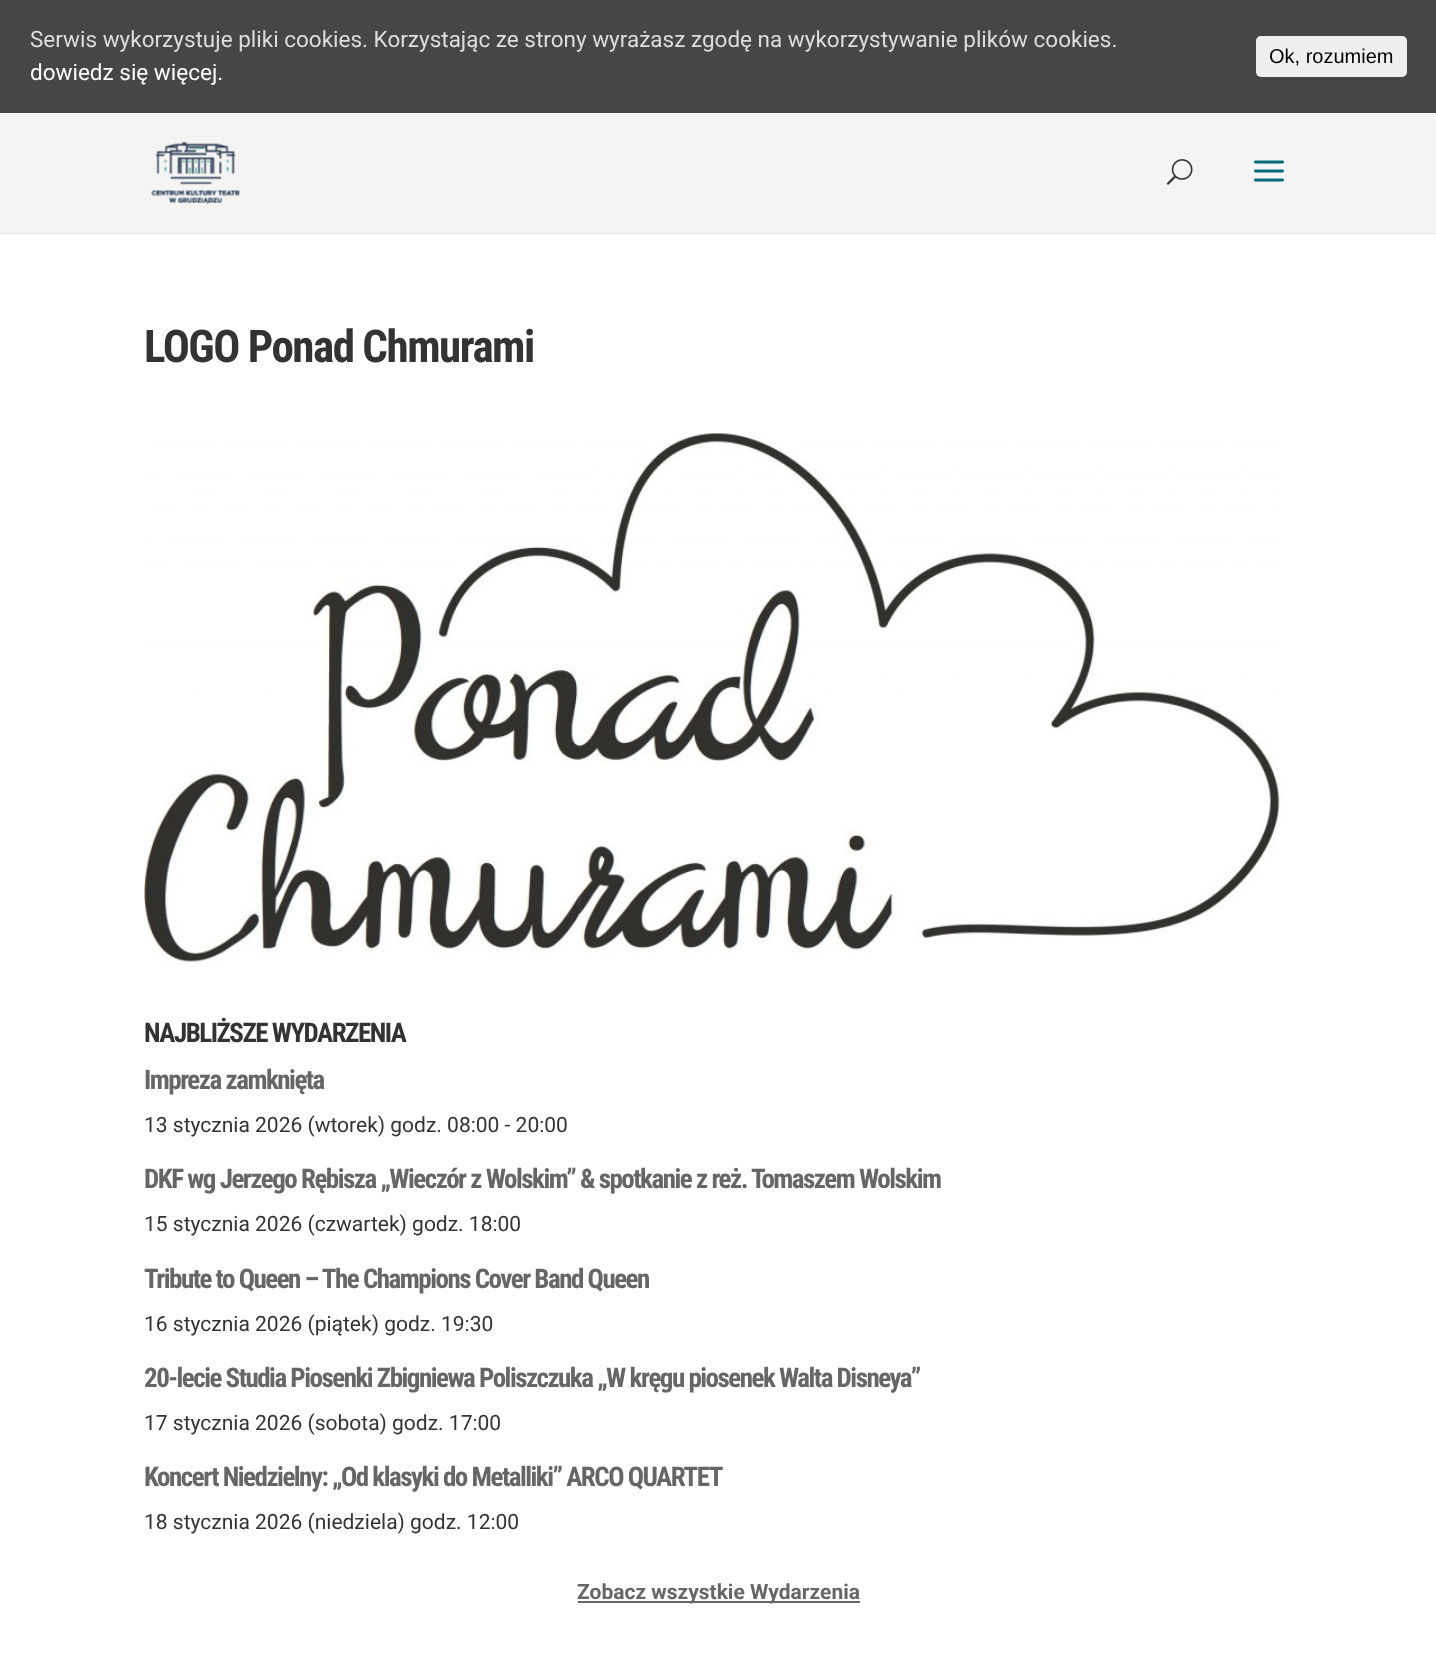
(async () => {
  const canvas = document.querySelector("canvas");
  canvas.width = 1436;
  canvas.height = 1676;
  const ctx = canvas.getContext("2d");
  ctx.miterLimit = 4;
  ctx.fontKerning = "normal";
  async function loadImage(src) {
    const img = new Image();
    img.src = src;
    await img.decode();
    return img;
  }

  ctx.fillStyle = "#ffffff";
  ctx.fillRect(0, 0, 1436, 1676);
  ctx.fillStyle = "#464646";
  ctx.fillRect(0, 0, 1436, 113);
  ctx.fillStyle = "#efefef";
  ctx.beginPath();
  ctx.roundRect(1256, 36, 151, 41, 5);
  ctx.fill();
  ctx.fillStyle = "#f4f4f4";
  ctx.fillRect(0, 113, 1436, 120);
  ctx.drawImage(await loadImage("img/1.png"), 151, 141, 89, 64);
  ctx.drawImage(await loadImage("img/2.png"), 1166, 159, 27, 26);
  ctx.drawImage(await loadImage("img/3.png"), 1254, 160, 30, 22);
  ctx.fillStyle = "#e6e6e6";
  ctx.fillRect(0, 233, 1436, 1);
  ctx.drawImage(await loadImage("img/4.png"), 144, 433, 1140, 529);
  ctx.fillStyle = "#666666";
  ctx.fillRect(578, 1601, 282, 2);
  ctx.font = "22.5px Roboto";
  ctx.fillStyle = "#dddddd";
  ctx.fillText("Serwis wykorzystuje pliki cookies. Korzystając ze strony wyrażasz zgodę na wykorzystywanie plików cookies.", 30, 47);
  ctx.fillStyle = "#ffffff";
  ctx.fillText("dowiedz się więcej.", 30, 80);
  ctx.font = "20px Liberation Sans";
  ctx.fillStyle = "#000000";
  ctx.fillText("Ok, rozumiem", 1269, 63);
  ctx.letterSpacing = "-1.5px";
  ctx.font = "bold 45px Roboto Condensed";
  ctx.fillStyle = "#333333";
  ctx.fillText("LOGO Ponad Chmurami", 144, 362);
  ctx.font = "bold 27px Roboto Condensed";
  ctx.fillText("NAJBLIŻSZE WYDARZENIA", 144, 1042);
  ctx.fillStyle = "#666666";
  ctx.fillText("Impreza zamknięta", 144, 1089);
  ctx.letterSpacing = "0px";
  ctx.font = "21px Roboto";
  ctx.fillStyle = "#333333";
  ctx.fillText("13 stycznia 2026 (wtorek) godz. 08:00 - 20:00", 144, 1132);
  ctx.letterSpacing = "-1.5px";
  ctx.font = "bold 27px Roboto Condensed";
  ctx.fillStyle = "#666666";
  ctx.fillText("DKF wg Jerzego Rębisza „Wieczór z Wolskim” & spotkanie z reż. Tomaszem Wolskim", 144, 1188);
  ctx.letterSpacing = "0px";
  ctx.font = "21px Roboto";
  ctx.fillStyle = "#333333";
  ctx.fillText("15 stycznia 2026 (czwartek) godz. 18:00", 144, 1231);
  ctx.letterSpacing = "-1.5px";
  ctx.font = "bold 27px Roboto Condensed";
  ctx.fillStyle = "#666666";
  ctx.fillText("Tribute to Queen – The Champions Cover Band Queen", 144, 1288);
  ctx.letterSpacing = "0px";
  ctx.font = "21px Roboto";
  ctx.fillStyle = "#333333";
  ctx.fillText("16 stycznia 2026 (piątek) godz. 19:30", 144, 1331);
  ctx.letterSpacing = "-1.5px";
  ctx.font = "bold 27px Roboto Condensed";
  ctx.fillStyle = "#666666";
  ctx.fillText("20-lecie Studia Piosenki Zbigniewa Poliszczuka „W kręgu piosenek Walta Disneya”", 144, 1387);
  ctx.letterSpacing = "0px";
  ctx.font = "21px Roboto";
  ctx.fillStyle = "#333333";
  ctx.fillText("17 stycznia 2026 (sobota) godz. 17:00", 144, 1430);
  ctx.letterSpacing = "-1.5px";
  ctx.font = "bold 27px Roboto Condensed";
  ctx.fillStyle = "#666666";
  ctx.fillText("Koncert Niedzielny: „Od klasyki do Metalliki” ARCO QUARTET", 144, 1486);
  ctx.letterSpacing = "0px";
  ctx.font = "21px Roboto";
  ctx.fillStyle = "#333333";
  ctx.fillText("18 stycznia 2026 (niedziela) godz. 12:00", 144, 1529);
  ctx.font = "bold 21px Roboto";
  ctx.fillStyle = "#666666";
  ctx.fillText("Zobacz wszystkie Wydarzenia", 577, 1599);
})();
